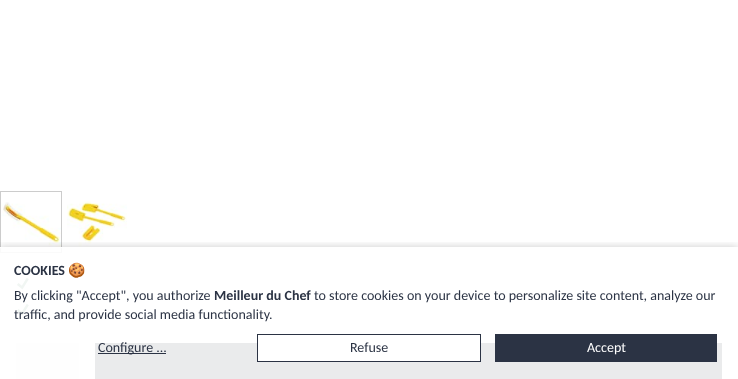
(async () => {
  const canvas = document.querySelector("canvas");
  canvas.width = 738;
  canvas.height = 379;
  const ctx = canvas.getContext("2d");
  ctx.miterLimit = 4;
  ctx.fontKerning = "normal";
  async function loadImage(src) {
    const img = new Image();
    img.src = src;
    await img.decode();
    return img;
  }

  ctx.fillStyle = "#ffffff";
  ctx.fillRect(0, 0, 738, 379);
  ctx.strokeStyle = "#cccccc";
  ctx.strokeRect(0.5, 191.5, 61, 61);
  ctx.drawImage(await loadImage("img/1.png"), 1, 202, 60, 50);
  ctx.drawImage(await loadImage("img/2.png"), 67, 201, 60, 48);
  ctx.drawImage(await loadImage("img/3.png"), 17, 278, 12, 12);
  ctx.drawImage(await loadImage("img/3.png"), 17, 304, 12, 12);
  ctx.fillStyle = "#f3f3f3";
  ctx.fillRect(16, 343, 63, 36);
  ctx.fillStyle = "#2b3344";
  ctx.fillRect(95, 343, 627, 36);
  ctx.save();
  ctx.beginPath();
  ctx.rect(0, 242, 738, 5);
  ctx.clip();
  ctx.fillStyle = "rgba(0, 0, 0, 0.2)";
  ctx.filter = "blur(4px)";
  ctx.beginPath();
  ctx.rect(0, 247, 738, 132);
  ctx.fill();
  ctx.filter = "none";
  ctx.restore();
  for (const [x, y, w, h, color] of [
    [0, 248, 722, 131, "rgba(255, 255, 255, 0.9)"],
    [0, 247, 91, 1, "#ffffff"],
    [98, 353, 68, 1, "#2b3344"],
    [258, 343, 222, 18, "#ffffff"],
  ]) {
    ctx.fillStyle = color;
    ctx.fillRect(x, y, w, h);
  }
  ctx.strokeStyle = "#2b3344";
  ctx.strokeRect(257.5, 334.5, 223, 27);
  ctx.fillStyle = "#2b3344";
  ctx.fillRect(495, 334, 222, 28);
  ctx.font = "bold 14px Carlito";
  ctx.fillText("COOKIES", 14, 275);
  ctx.font = "bold 14px Noto Color Emoji";
  ctx.fillText("🍪", 68, 275);
  ctx.font = "14px Carlito";
  ctx.fillText("By clicking \"Accept\", you authorize", 14, 300);
  ctx.font = "bold 14px Carlito";
  ctx.fillText("Meilleur du Chef", 214, 300);
  ctx.font = "14px Carlito";
  for (const [text, x, y] of [
    ["to store cookies on your device to personalize site content, analyze our", 314, 300],
    ["traffic, and provide social media functionality.", 14, 319],
    ["Configure ...", 98, 352],
    ["Refuse", 350, 352],
  ]) {
    ctx.fillText(text, x, y);
  }
  ctx.fillStyle = "#ffffff";
  ctx.fillText("Accept", 587, 352);
})();
